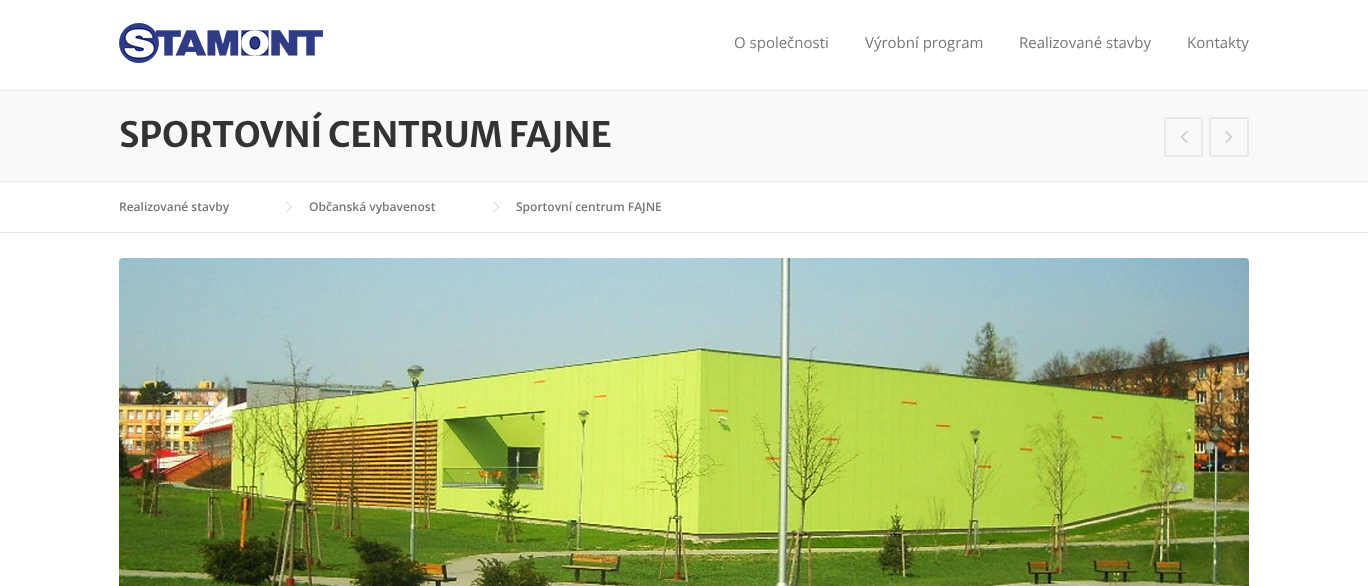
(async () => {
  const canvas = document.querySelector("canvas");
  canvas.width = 1368;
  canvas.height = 586;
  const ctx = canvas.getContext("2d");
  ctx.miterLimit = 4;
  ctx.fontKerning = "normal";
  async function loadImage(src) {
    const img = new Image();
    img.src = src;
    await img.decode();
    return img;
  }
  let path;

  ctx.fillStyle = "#ffffff";
  ctx.fillRect(0, 0, 1368, 586);
  ctx.drawImage(await loadImage("img/1.png"), 119, 23, 204, 40);
  for (const [x, y, w, h, color] of [
    [0, 91, 1368, 90, "#f8f9f9"],
    [0, 90, 1368, 1, "#e9e9e9"],
    [0, 181, 1368, 1, "#e9e9e9"],
  ]) {
    ctx.fillStyle = color;
    ctx.fillRect(x, y, w, h);
  }
  ctx.beginPath();
  ctx.roundRect(1165, 118, 37, 38, 1);
  ctx.strokeStyle = "#e9e9e9";
  ctx.lineWidth = 2;
  ctx.stroke();
  ctx.drawImage(await loadImage("img/2.png"), 1180, 131, 8, 12);
  ctx.beginPath();
  ctx.roundRect(1210, 118, 38, 38, 1);
  ctx.stroke();
  ctx.drawImage(await loadImage("img/3.png"), 1225, 131, 8, 12);
  ctx.fillRect(0, 232, 1368, 1);
  ctx.fillStyle = "#cccccc";
  path = new Path2D("M286 213V201L292 207Z");
  ctx.fill(path);
  ctx.fillStyle = "#ffffff";
  path = new Path2D("M286 212V202L291 207Z");
  ctx.fill(path);
  ctx.fillStyle = "#cccccc";
  path = new Path2D("M493 213V201L499 207Z");
  ctx.fill(path);
  ctx.fillStyle = "#ffffff";
  path = new Path2D("M493 212V202L498 207Z");
  ctx.fill(path);
  ctx.drawImage(await loadImage("img/4.png"), 119, 258, 1130, 328);
  ctx.font = "15px Open Sans";
  ctx.fillStyle = "#777777";
  for (const [text, x, y] of [
    ["O společnosti", 734, 48],
    ["Výrobní program", 865, 48],
    ["Realizované stavby", 1019, 48],
    ["Kontakty", 1187, 48],
  ]) {
    ctx.fillText(text, x, y);
  }
  ctx.letterSpacing = "-0.2px";
  ctx.font = "bold 35px Merriweather Sans";
  ctx.fillStyle = "#333333";
  ctx.fillText("SPORTOVNÍ CENTRUM FAJNE", 119, 147);
  ctx.letterSpacing = "0px";
  ctx.font = "600 12px Open Sans";
  ctx.fillStyle = "#777777";
  for (const [text, x, y] of [
    ["Realizované stavby", 119, 211],
    ["Občanská vybavenost", 309, 211],
    ["Sportovní centrum FAJNE", 516, 211],
  ]) {
    ctx.fillText(text, x, y);
  }
})();
